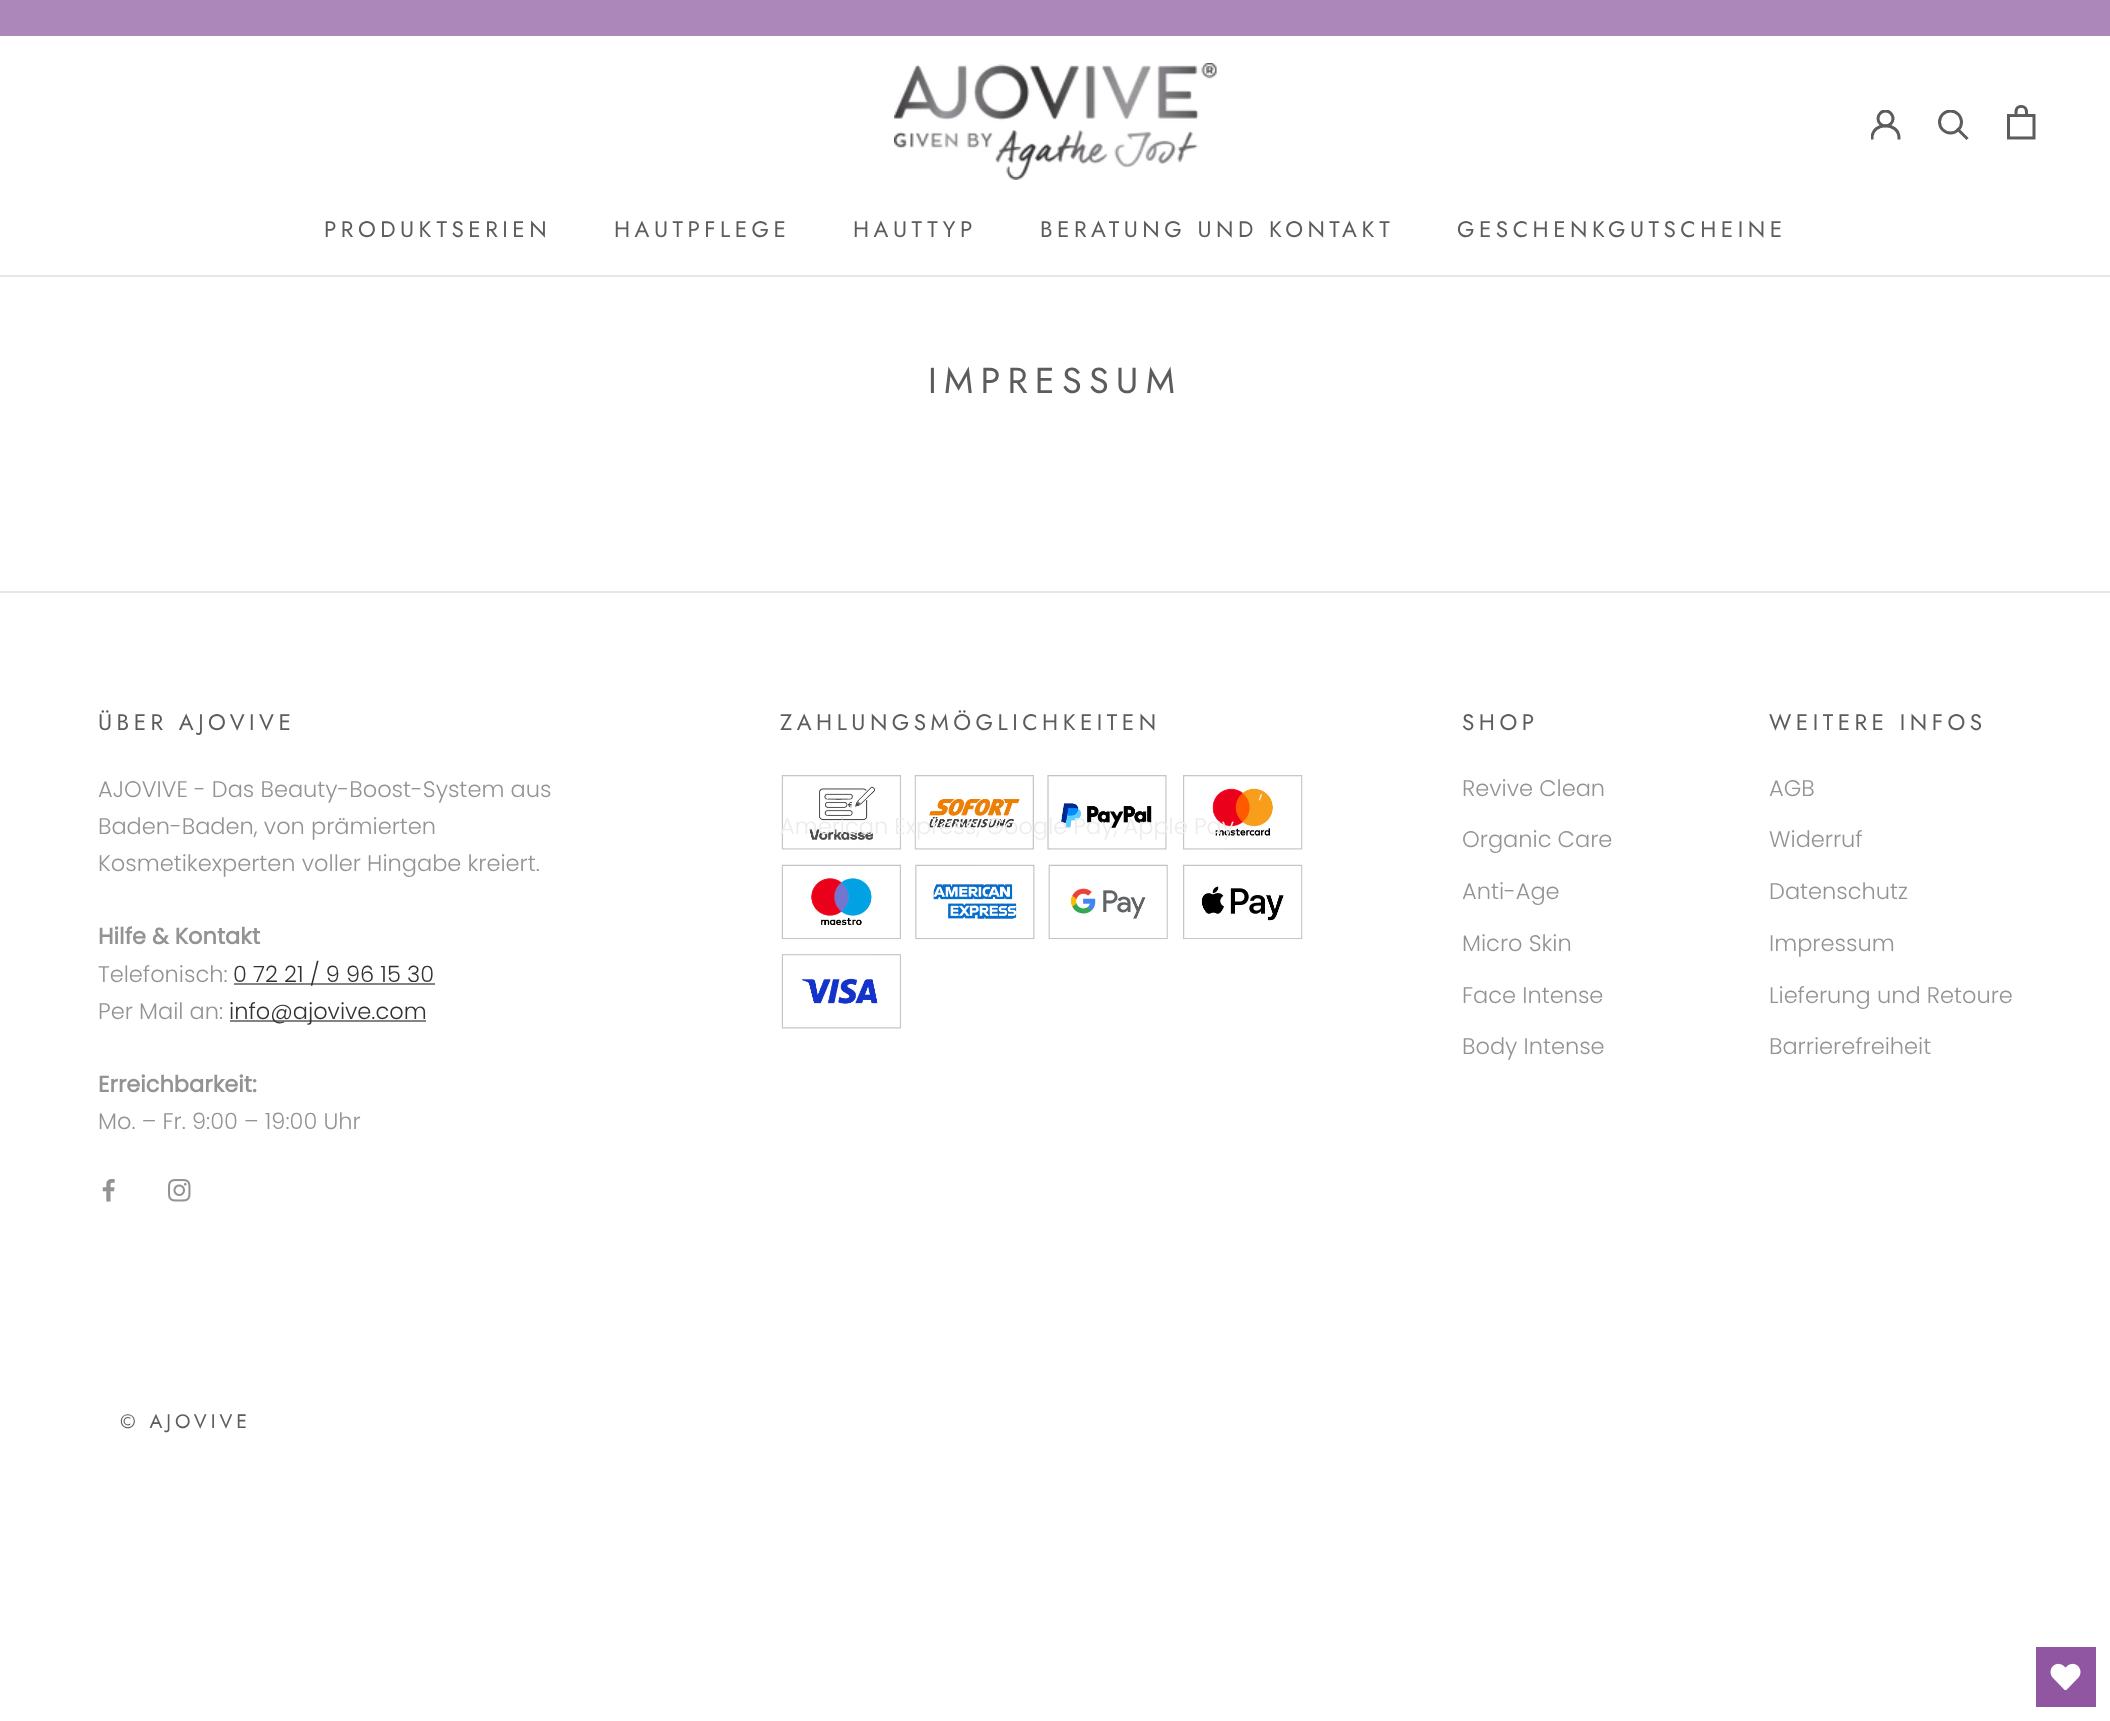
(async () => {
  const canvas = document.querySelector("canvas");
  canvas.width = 2110;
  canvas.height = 1721;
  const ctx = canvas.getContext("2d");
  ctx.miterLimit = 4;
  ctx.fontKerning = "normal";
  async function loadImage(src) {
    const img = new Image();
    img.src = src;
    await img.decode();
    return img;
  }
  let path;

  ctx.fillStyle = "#ffffff";
  ctx.fillRect(0, 0, 2110, 1721);
  ctx.fillStyle = "#ab87ba";
  ctx.fillRect(0, 0, 2110, 36);
  ctx.fillStyle = "#e7e7e7";
  ctx.fillRect(0, 275, 2110, 2);
  ctx.drawImage(await loadImage("img/1.png"), 894, 63, 323, 117);
  ctx.save();
  ctx.beginPath();
  ctx.rect(1871, 110, 30, 30);
  ctx.clip();
  path = new Path2D("M1872 138C1872 121.5 1899 121.5 1899 138");
  ctx.strokeStyle = "#5c5c5c";
  ctx.lineWidth = 3;
  ctx.lineCap = "square";
  ctx.stroke(path);
  ctx.beginPath();
  ctx.arc(1885.5, 118.5, 7.5, 0, Math.PI * 2);
  ctx.stroke();
  ctx.restore();
  path = new Path2D("M1966.5 138L1958 129.5");
  ctx.strokeStyle = "#5c5c5c";
  ctx.lineWidth = 3;
  ctx.lineCap = "square";
  ctx.stroke(path);
  ctx.save();
  ctx.beginPath();
  ctx.rect(1938, 110, 32, 31);
  ctx.clip();
  ctx.beginPath();
  ctx.arc(1950.5, 122, 11, 0, Math.PI * 2);
  ctx.stroke();
  ctx.restore();
  ctx.drawImage(await loadImage("img/2.png"), 2007, 105, 29, 35);
  for (const [x, y, w, h, color] of [
    [0, 591, 2110, 2, "#e7e7e7"],
    [234, 983, 201, 2, "#848484"],
    [230, 1020, 196, 2, "#848484"],
  ]) {
    ctx.fillStyle = color;
    ctx.fillRect(x, y, w, h);
  }
  ctx.drawImage(await loadImage("img/3.png"), 102, 1179, 13, 23);
  ctx.drawImage(await loadImage("img/4.png"), 168, 1179, 23, 23);
  ctx.drawImage(await loadImage("img/5.png"), 781, 775, 522, 254);
  ctx.fillStyle = "#9056a2";
  ctx.fillRect(2036, 1647, 60, 60);
  ctx.drawImage(await loadImage("img/6.png"), 2050, 1663, 31, 28);
  ctx.letterSpacing = "4.5px";
  ctx.font = "22.5px Jost";
  ctx.fillStyle = "#5c5c5c";
  for (const [text, x, y] of [
    ["PRODUKTSERIEN", 324, 237],
    ["HAUTPFLEGE", 614, 237],
    ["HAUTTYP", 853, 237],
    ["BERATUNG UND KONTAKT", 1040, 237],
    ["GESCHENKGUTSCHEINE", 1457, 237],
  ]) {
    ctx.fillText(text, x, y);
  }
  ctx.letterSpacing = "7.25px";
  ctx.font = "36px Jost";
  ctx.fillText("IMPRESSUM", 928, 393);
  ctx.letterSpacing = "4.5px";
  ctx.font = "22.5px Jost";
  ctx.fillText("ÜBER AJOVIVE", 98, 730);
  ctx.letterSpacing = "0px";
  ctx.font = "300 22.5px Poppins";
  ctx.fillStyle = "#939393";
  for (const [text, x, y] of [
    ["AJOVIVE - Das Beauty-Boost-System aus", 98, 797],
    ["Baden-Baden, von prämierten", 98, 834],
    ["Kosmetikexperten voller Hingabe kreiert.", 98, 871],
  ]) {
    ctx.fillText(text, x, y);
  }
  ctx.font = "bold 22.5px Poppins";
  ctx.fillText("Hilfe & Kontakt", 98, 944);
  ctx.font = "300 22.5px Poppins";
  ctx.fillText("Telefonisch:", 98, 982);
  ctx.fillStyle = "#323232";
  ctx.fillText("0 72 21 / 9 96 15 30", 233, 982);
  ctx.fillStyle = "#939393";
  ctx.fillText("Per Mail an:", 98, 1019);
  ctx.fillStyle = "#323232";
  ctx.fillText("info@ajovive.com", 229, 1019);
  ctx.font = "bold 22.5px Poppins";
  ctx.fillStyle = "#939393";
  ctx.fillText("Erreichbarkeit:", 98, 1092);
  ctx.font = "300 22.5px Poppins";
  ctx.fillText("Mo. – Fr. 9:00 – 19:00 Uhr", 98, 1129);
  ctx.letterSpacing = "4.5px";
  ctx.font = "22.5px Jost";
  ctx.fillStyle = "#5c5c5c";
  ctx.fillText("ZAHLUNGSMÖGLICHKEITEN", 780, 730);
  ctx.letterSpacing = "0px";
  ctx.font = "300 22.5px Poppins";
  ctx.fillStyle = "#fbf3f1";
  ctx.fillText(",", 1259, 797);
  ctx.fillStyle = "#edebec";
  ctx.fillText("American Express, Google Pay, Apple Pay,", 780, 834);
  ctx.letterSpacing = "4.5px";
  ctx.font = "22.5px Jost";
  ctx.fillStyle = "#5c5c5c";
  ctx.fillText("SHOP", 1462, 730);
  ctx.letterSpacing = "0px";
  ctx.font = "300 22.5px Poppins";
  ctx.fillStyle = "#939393";
  for (const [text, x, y] of [
    ["Revive Clean", 1462, 796],
    ["Organic Care", 1462, 847],
    ["Anti-Age", 1462, 899],
    ["Micro Skin", 1462, 951],
    ["Face Intense", 1462, 1003],
    ["Body Intense", 1462, 1054],
  ]) {
    ctx.fillText(text, x, y);
  }
  ctx.letterSpacing = "4.5px";
  ctx.font = "22.5px Jost";
  ctx.fillStyle = "#5c5c5c";
  ctx.fillText("WEITERE INFOS", 1769, 730);
  ctx.letterSpacing = "0px";
  ctx.font = "300 22.5px Poppins";
  ctx.fillStyle = "#939393";
  for (const [text, x, y] of [
    ["AGB", 1769, 796],
    ["Widerruf", 1769, 847],
    ["Datenschutz", 1769, 899],
    ["Impressum", 1769, 951],
    ["Lieferung und Retoure", 1769, 1003],
    ["Barrierefreiheit", 1769, 1054],
  ]) {
    ctx.fillText(text, x, y);
  }
  ctx.letterSpacing = "4px";
  ctx.font = "19.5px Jost";
  ctx.fillStyle = "#5c5c5c";
  ctx.fillText("© AJOVIVE", 120, 1428);
})();
